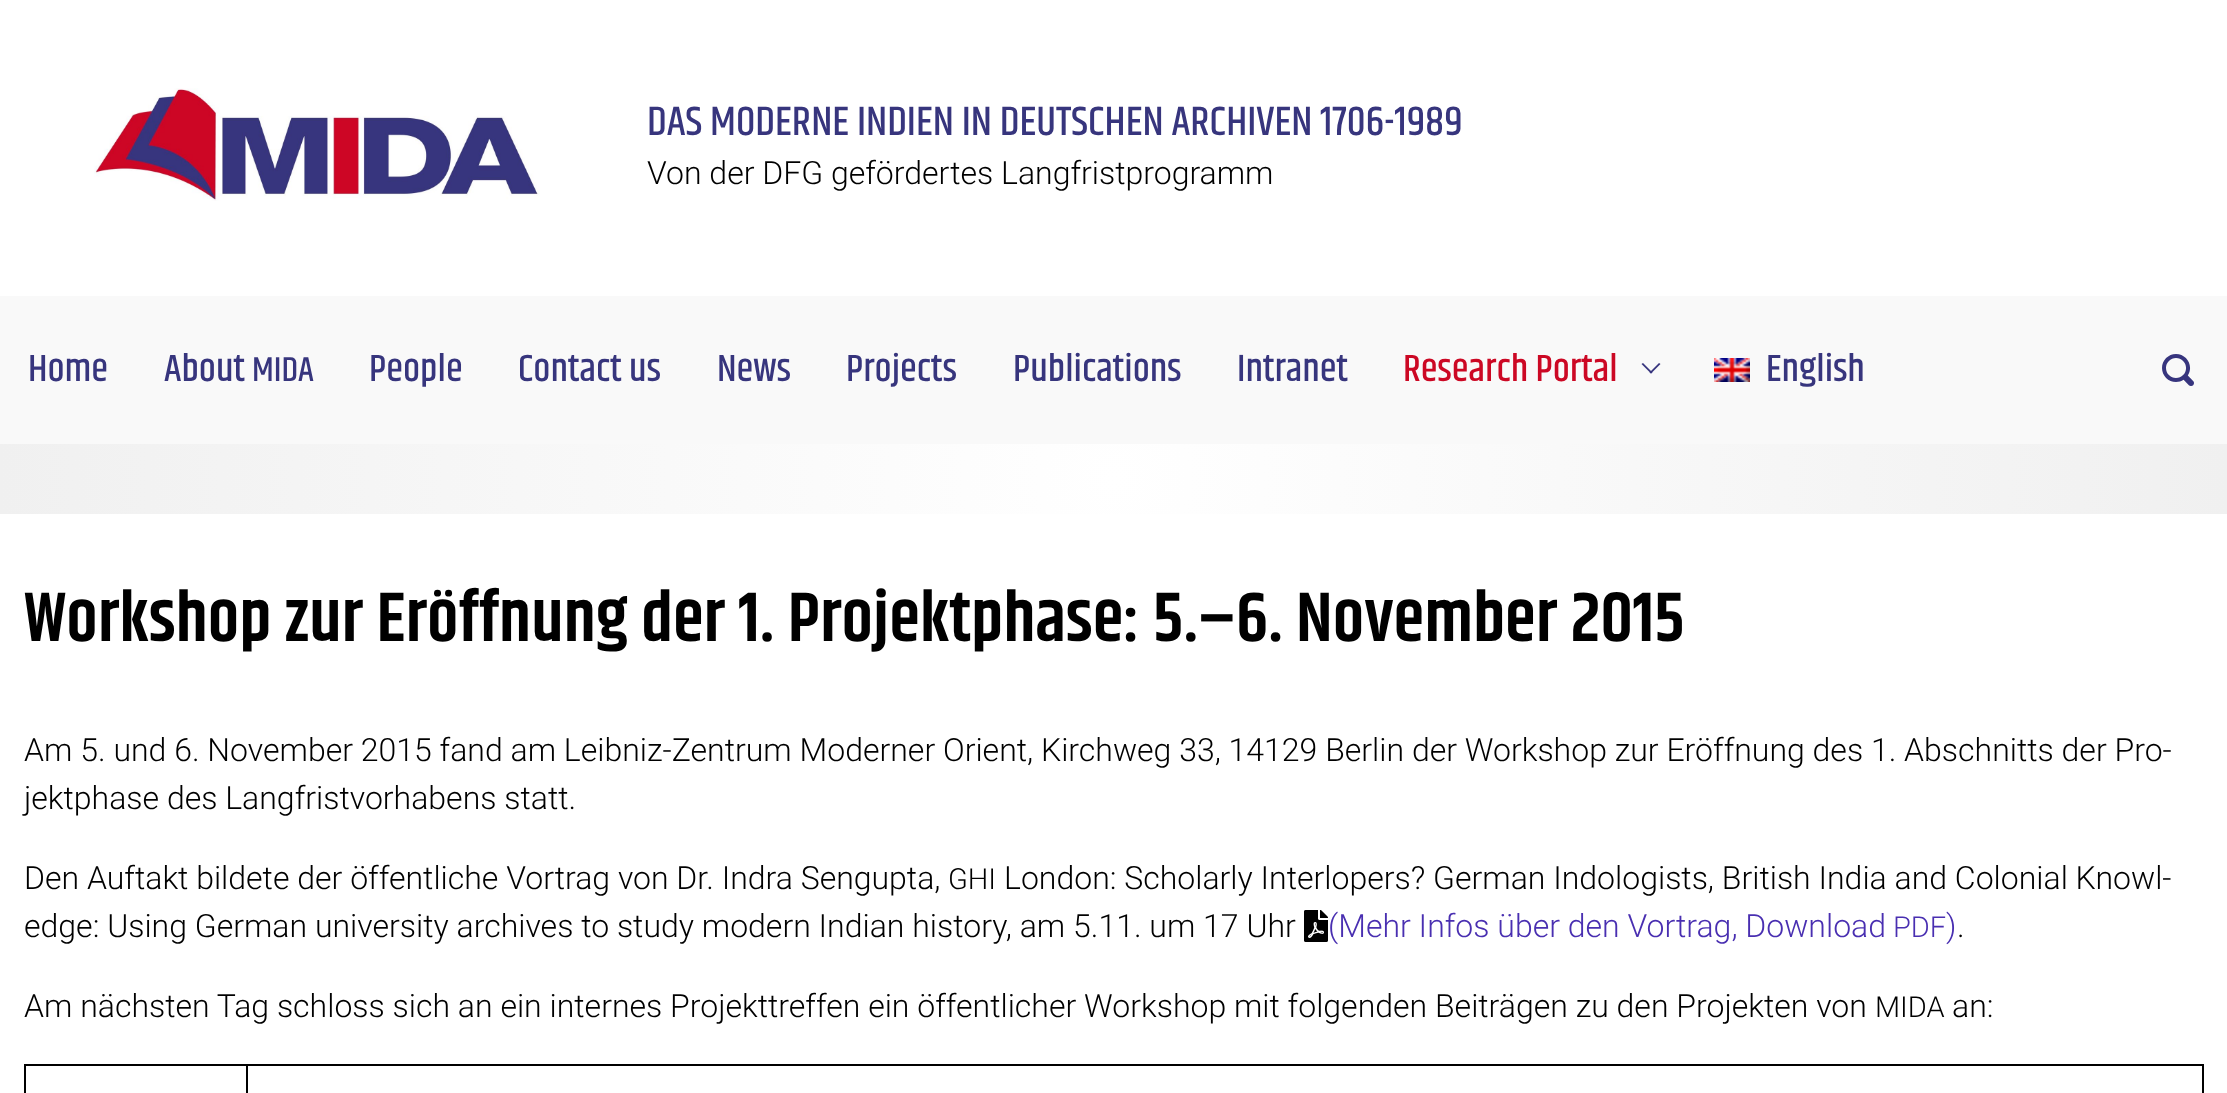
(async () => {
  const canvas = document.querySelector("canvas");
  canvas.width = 2227;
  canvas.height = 1093;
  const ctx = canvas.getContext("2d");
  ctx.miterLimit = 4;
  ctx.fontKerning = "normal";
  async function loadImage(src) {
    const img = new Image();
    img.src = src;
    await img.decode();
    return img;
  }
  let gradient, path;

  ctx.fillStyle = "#f9f9f9";
  ctx.fillRect(0, 0, 2227, 1093);
  ctx.fillStyle = "#ffffff";
  ctx.fillRect(0, 0, 2227, 296);
  ctx.drawImage(await loadImage("img/1.png"), 94, 88, 446, 113);
  ctx.fillStyle = "#37357e";
  path = new Path2D("M1659 363L1660.5 364L1651 373.5L1649.5 372.5Z");
  ctx.fill(path);
  path = new Path2D("M1643 363L1652.5 372.5L1651 373.5L1641.5 364Z");
  ctx.fill(path);
  ctx.drawImage(await loadImage("img/2.png"), 1714, 358, 36, 24);
  ctx.drawImage(await loadImage("img/3.png"), 2162, 354, 32, 32);
  gradient = ctx.createRadialGradient(1114, 479, 0, 1114, 479, 1115);
  gradient.addColorStop(0, "#ffffff");
  gradient.addColorStop(1, "#f0f0f0");
  ctx.fillStyle = gradient;
  ctx.fillRect(0, 444, 2227, 70);
  ctx.fillStyle = "#ffffff";
  ctx.fillRect(0, 514, 2227, 579);
  ctx.drawImage(await loadImage("img/4.png"), 1304, 910, 24, 32);
  for (const [x, y, w, h, color] of [
    [246, 1064, 1958, 2, "#000000"],
    [246, 1064, 2, 29, "#000000"],
    [24, 1064, 224, 2, "#000000"],
    [24, 1064, 2, 29, "#000000"],
    [2202, 1064, 2, 29, "#000000"],
  ]) {
    ctx.fillStyle = color;
    ctx.fillRect(x, y, w, h);
  }
  ctx.font = "500 41.6px Khand";
  ctx.fillStyle = "#37357d";
  ctx.fillText("DAS MODERNE INDIEN IN DEUTSCHEN ARCHIVEN 1706-1989", 647, 135);
  ctx.font = "300 32px Roboto";
  ctx.fillStyle = "#000000";
  ctx.fillText("Von der DFG gefördertes Langfristprogramm", 647, 184);
  ctx.font = "500 38.5px Khand";
  ctx.fillStyle = "#37357d";
  ctx.fillText("Home", 28, 381);
  ctx.fillText("About", 164, 381);
  ctx.font = "500 35px Khand";
  ctx.fillText("MIDA", 252, 381);
  ctx.font = "500 38.5px Khand";
  for (const [text, x, y] of [
    ["People", 369, 381],
    ["Contact us", 518, 381],
    ["News", 717, 381],
    ["Projects", 846, 381],
    ["Publications", 1013, 381],
    ["Intranet", 1237, 381],
  ]) {
    ctx.fillText(text, x, y);
  }
  ctx.fillStyle = "#cc0824";
  ctx.fillText("Research Portal", 1403, 381);
  ctx.fillStyle = "#37357d";
  ctx.fillText("English", 1766, 381);
  ctx.font = "600 70.4px Khand";
  ctx.fillStyle = "#000000";
  ctx.fillText("Workshop zur Eröffnung der 1. Projektphase: 5.–6. November 2015", 24, 641);
  ctx.font = "300 32px Roboto";
  for (const [text, x, y] of [
    ["Am 5. und 6. November 2015 fand am Leibniz-Zentrum Moderner Orient, Kirchweg 33, 14129 Berlin der Workshop zur Eröffnung des 1. Abschnitts der Pro-", 24, 761],
    ["jektphase des Langfristvorhabens statt.", 24, 809],
    ["Den Auftakt bildete der öffentliche Vortrag von Dr. Indra Sengupta,", 24, 889],
  ]) {
    ctx.fillText(text, x, y);
  }
  ctx.font = "300 29px Roboto";
  ctx.fillText("GHI", 948, 889);
  ctx.font = "300 32px Roboto";
  ctx.fillText("London: Scholarly Interlopers? German Indologists, British India and Colonial Knowl-", 1004, 889);
  ctx.fillText("edge: Using German university archives to study modern Indian history, am 5.11. um 17 Uhr", 24, 937);
  ctx.fillStyle = "#492fb1";
  ctx.fillText("(Mehr Infos über den Vortrag, Download", 1328, 937);
  ctx.font = "300 29px Roboto";
  ctx.fillText("PDF", 1893, 937);
  ctx.font = "300 32px Roboto";
  ctx.fillText(")", 1946, 937);
  ctx.fillStyle = "#000000";
  ctx.fillText(".", 1957, 937);
  ctx.fillText("Am nächsten Tag schloss sich an ein internes Projekttreffen ein öffentlicher Workshop mit folgenden Beiträgen zu den Projekten von", 24, 1017);
  ctx.font = "300 29px Roboto";
  ctx.fillText("MIDA", 1875, 1017);
  ctx.font = "300 32px Roboto";
  ctx.fillText("an:", 1952, 1017);
})();
